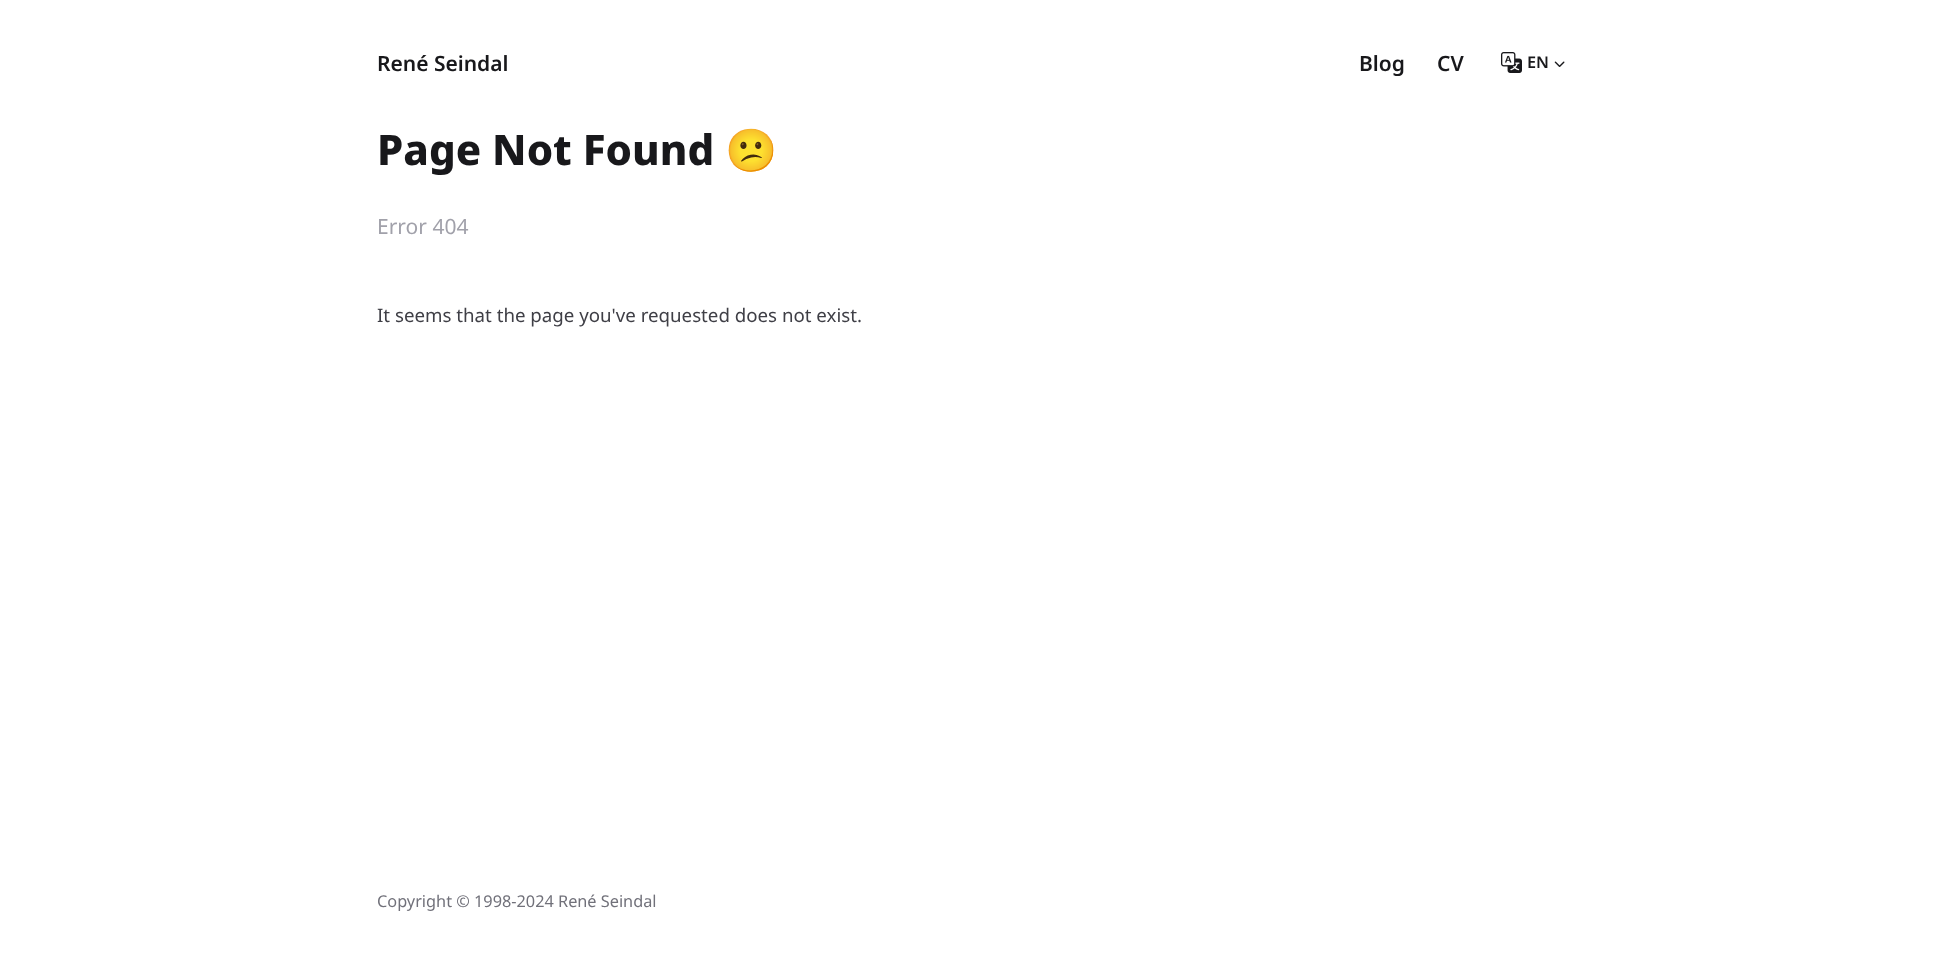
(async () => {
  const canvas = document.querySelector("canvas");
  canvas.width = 1949;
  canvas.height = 960;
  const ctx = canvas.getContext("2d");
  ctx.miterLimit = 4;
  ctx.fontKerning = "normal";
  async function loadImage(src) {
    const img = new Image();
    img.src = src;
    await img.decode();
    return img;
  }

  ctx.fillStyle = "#ffffff";
  ctx.fillRect(0, 0, 1949, 960);
  ctx.drawImage(await loadImage("img/1.png"), 1501, 52, 21, 21);
  ctx.drawImage(await loadImage("img/2.png"), 1554, 61, 11, 6);
  ctx.font = "600 21px Noto Sans";
  ctx.fillStyle = "#18181b";
  for (const [text, x, y] of [
    ["René Seindal", 377, 71],
    ["Blog", 1359, 71],
    ["CV", 1437, 71],
  ]) {
    ctx.fillText(text, x, y);
  }
  ctx.font = "600 16.3px Noto Sans";
  ctx.fillText("EN", 1527, 68);
  ctx.font = "800 42px Noto Sans";
  ctx.fillText("Page Not Found", 377, 165);
  ctx.font = "bold 42px Noto Color Emoji";
  ctx.fillText("😕", 725, 165);
  ctx.font = "21px Noto Sans";
  ctx.fillStyle = "#a1a1aa";
  ctx.fillText("Error 404", 377, 234);
  ctx.font = "18.7px Noto Sans";
  ctx.fillStyle = "#3f3f46";
  ctx.fillText("It seems that the page you've requested does not exist.", 377, 322);
  ctx.font = "16.3px Noto Sans";
  ctx.fillStyle = "#71717a";
  ctx.fillText("Copyright © 1998-2024 René Seindal", 377, 907);
})();
